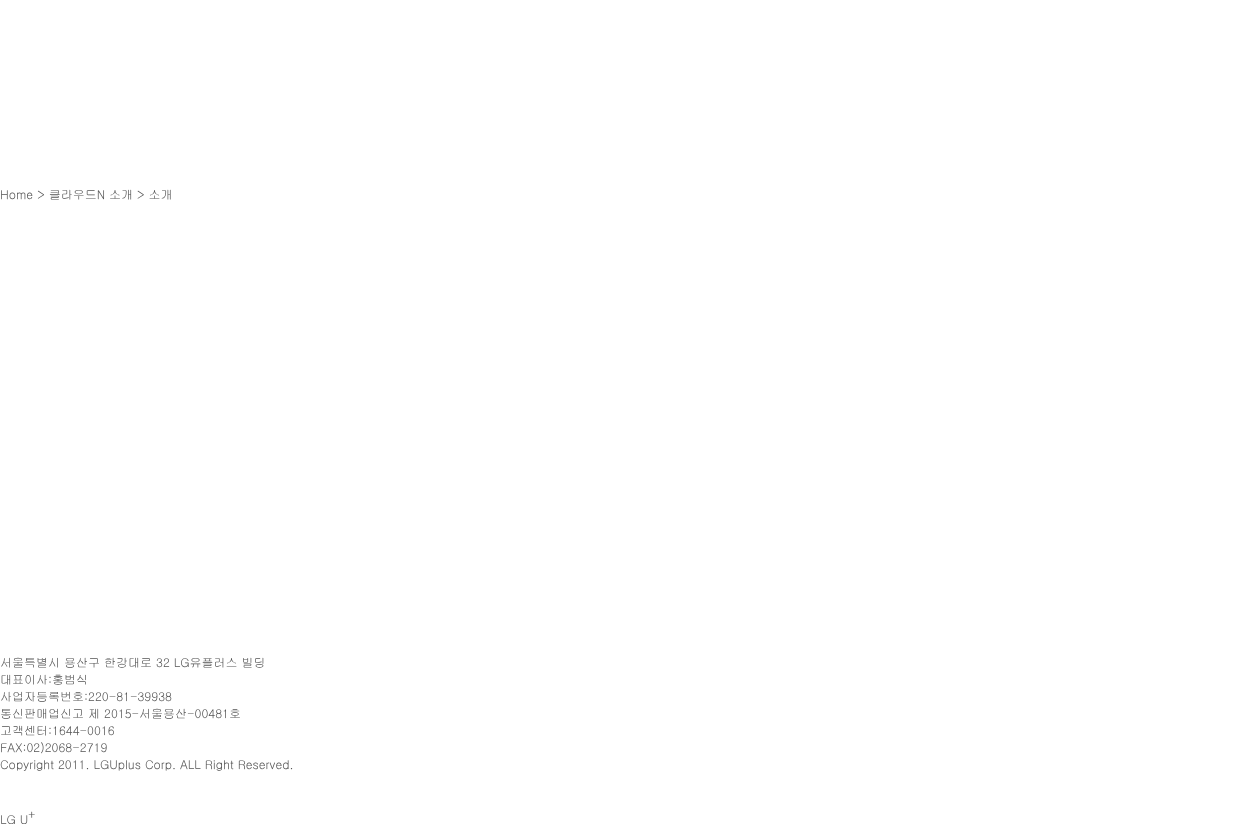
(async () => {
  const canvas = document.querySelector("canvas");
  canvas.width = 1253;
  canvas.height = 824;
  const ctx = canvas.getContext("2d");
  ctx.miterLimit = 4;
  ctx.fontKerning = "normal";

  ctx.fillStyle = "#ffffff";
  ctx.fillRect(0, 0, 1253, 824);
  ctx.font = "12px Gulim";
  ctx.fillStyle = "#555555";
  for (const [text, x, y] of [
    ["Home > 클라우드N 소개 > 소개", 0, 199],
    ["서울특별시 용산구 한강대로 32 LG유플러스 빌딩", 0, 667],
    ["대표이사:홍범식", 0, 684],
    ["사업자등록번호:220-81-39938", 0, 701],
    ["통신판매업신고 제 2015-서울용산-00481호", 0, 718],
    ["고객센터:1644-0016", 0, 735],
    ["FAX:02)2068-2719", 0, 752],
    ["Copyright 2011. LGUplus Corp. ALL Right Reserved.", 0, 769],
    ["LG U", 0, 824],
    ["+", 28, 819],
  ]) {
    ctx.fillText(text, x, y);
  }
})();
